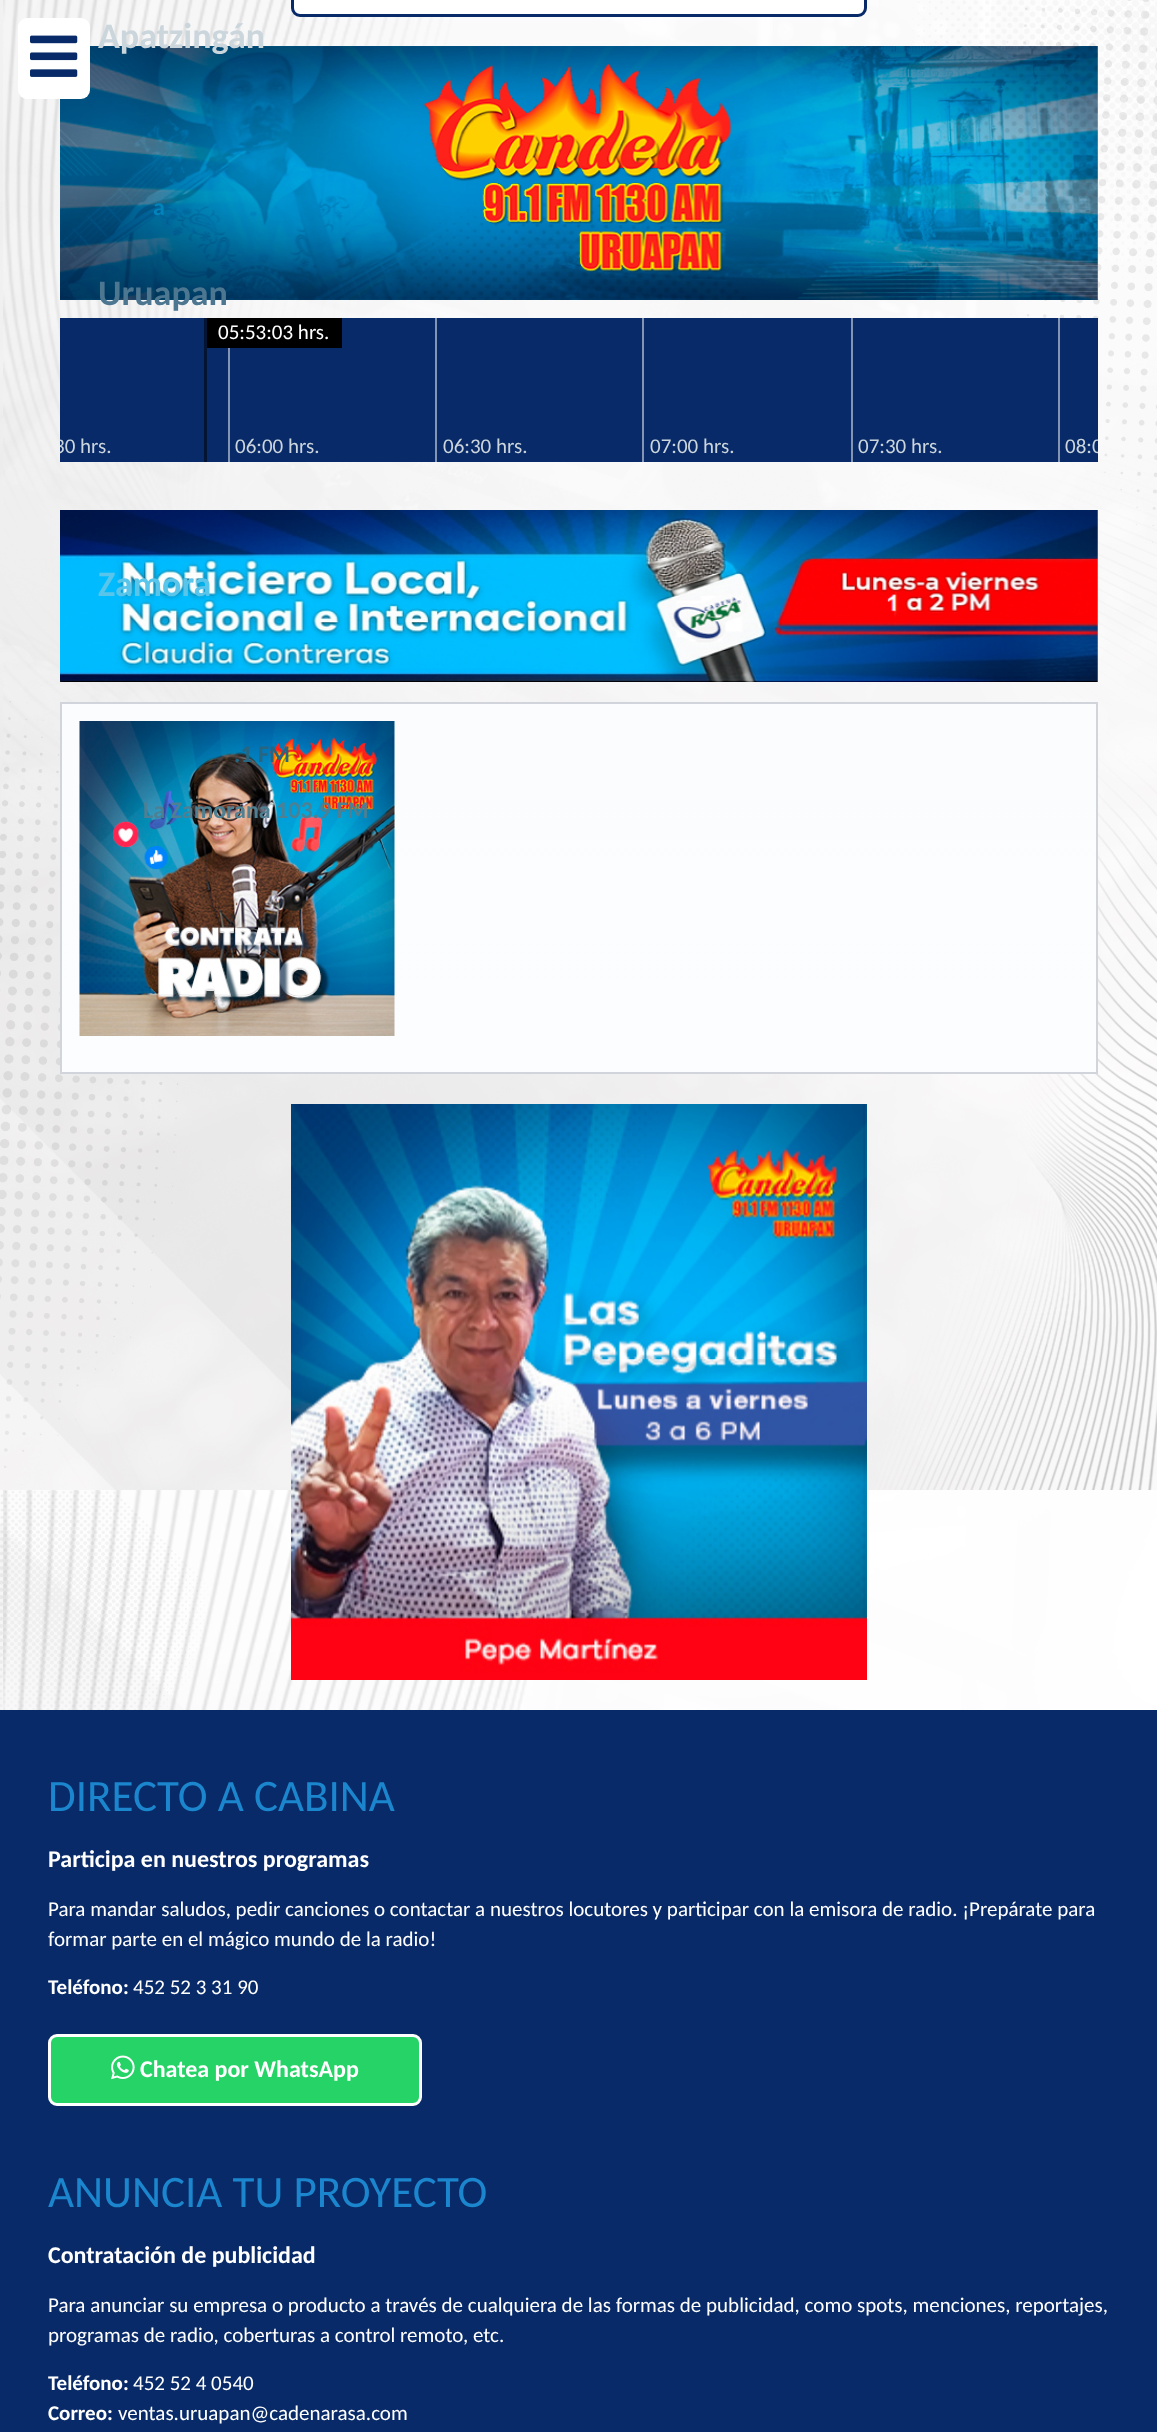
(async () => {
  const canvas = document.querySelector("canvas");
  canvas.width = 1157;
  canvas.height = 2432;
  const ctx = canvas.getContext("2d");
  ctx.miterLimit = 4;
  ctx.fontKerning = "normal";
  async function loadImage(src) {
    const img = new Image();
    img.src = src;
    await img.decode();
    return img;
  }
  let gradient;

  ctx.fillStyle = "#ffffff";
  ctx.fillRect(0, 0, 1157, 2432);
  ctx.drawImage(await loadImage("img/1.png"), 0, 0, 1157, 1710);
  ctx.drawImage(await loadImage("img/3.png"), 60, 46, 1038, 254);
  ctx.beginPath();
  ctx.roundRect(18, 18, 72, 81, 9);
  ctx.fill();
  ctx.drawImage(await loadImage("img/2.png"), 30, 35, 48, 42);
  ctx.beginPath();
  ctx.roundRect(292.5, -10.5, 573, 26, 7.5);
  ctx.fill();
  ctx.strokeStyle = "#082a68";
  ctx.lineWidth = 3;
  ctx.stroke();
  for (const [x, y, w, h, color] of [
    [60, 318, 1038, 144, "#082a68"],
    [228, 348, 2, 114, "#8495b4"],
    [204, 318, 3, 144, "#041534"],
    [207, 318, 135, 30, "#000000"],
    [435, 318, 2, 144, "#8495b4"],
    [642, 318, 2, 144, "#8495b4"],
    [851, 318, 2, 144, "#8495b4"],
    [1058, 318, 2, 144, "#8495b4"],
  ]) {
    ctx.fillStyle = color;
    ctx.fillRect(x, y, w, h);
  }
  ctx.drawImage(await loadImage("img/4.png"), 60, 510, 1038, 172);
  gradient = ctx.createLinearGradient(579, 703, 579, 1073);
  gradient.addColorStop(0, "#fbfcfd");
  gradient.addColorStop(1, "#fbfdff");
  ctx.fillStyle = gradient;
  ctx.fillRect(62, 704, 1034, 368);
  ctx.strokeStyle = "#d1d5db";
  ctx.lineWidth = 2;
  ctx.strokeRect(61, 703, 1036, 370);
  ctx.drawImage(await loadImage("img/5.png"), 79, 721, 316, 315);
  ctx.drawImage(await loadImage("img/6.png"), 291, 1104, 576, 576);
  ctx.fillStyle = "#082a68";
  ctx.fillRect(0, 1710, 1157, 722);
  ctx.fillStyle = "#25d366";
  ctx.beginPath();
  ctx.roundRect(49.5, 2035.5, 371, 69, 7.5);
  ctx.fill();
  ctx.strokeStyle = "#ffffff";
  ctx.lineWidth = 3;
  ctx.stroke();
  ctx.drawImage(await loadImage("img/7.png"), 111, 2055, 24, 25);
  ctx.font = "bold 36px Carlito";
  ctx.fillStyle = "#cbd5dc";
  ctx.fillText("Apatzingán", 98, 48);
  ctx.font = "bold 24px Carlito";
  ctx.fillStyle = "#0183bb";
  ctx.fillText("a", 153, 215);
  ctx.font = "bold 36px Carlito";
  ctx.fillStyle = "#4d7691";
  ctx.fillText("Uruapan", 98, 305);
  ctx.fillStyle = "#59c5ea";
  ctx.fillText("Zamora", 98, 596);
  ctx.font = "bold 24px Carlito";
  ctx.fillStyle = "#276580";
  ctx.fillText(".1 FM", 234, 762);
  ctx.fillStyle = "#4e7f92";
  ctx.fillText("La Zamorana 103.9 FM", 143, 818);
  ctx.font = "21px Carlito";
  ctx.fillStyle = "#ffffff";
  ctx.fillText("05:53:03 hrs.", 218, 339);
  ctx.save();
  ctx.beginPath();
  ctx.rect(60, 318, 1038, 144);
  ctx.clip();
  ctx.fillStyle = "#cbd5dc";
  ctx.fillText("30 hrs.", 54, 453);
  ctx.restore();
  ctx.fillStyle = "#cbd5dc";
  for (const [text, x, y] of [
    ["06:00 hrs.", 235, 453],
    ["06:30 hrs.", 443, 453],
    ["07:00 hrs.", 650, 453],
    ["07:30 hrs.", 858, 453],
  ]) {
    ctx.fillText(text, x, y);
  }
  ctx.save();
  ctx.beginPath();
  ctx.rect(60, 318, 1038, 144);
  ctx.clip();
  ctx.fillText("08:0", 1065, 453);
  ctx.restore();
  ctx.font = "45px Carlito";
  ctx.fillStyle = "#1b86cd";
  ctx.fillText("DIRECTO A CABINA", 48, 1811);
  ctx.font = "bold 24px Carlito";
  ctx.fillStyle = "#ffffff";
  ctx.fillText("Participa en nuestros programas", 48, 1867);
  ctx.font = "21px Carlito";
  ctx.fillText("Para mandar saludos, pedir canciones o contactar a nuestros locutores y participar con la emisora de radio. ¡Prepárate para", 48, 1916);
  ctx.fillText("formar parte en el mágico mundo de la radio!", 48, 1946);
  ctx.font = "bold 21px Carlito";
  ctx.fillText("Teléfono:", 48, 1994);
  ctx.font = "21px Carlito";
  ctx.fillText("452 52 3 31 90", 133, 1994);
  ctx.font = "bold 24px Carlito";
  ctx.fillText("Chatea por WhatsApp", 140, 2077);
  ctx.font = "45px Carlito";
  ctx.fillStyle = "#1b86cd";
  ctx.fillText("ANUNCIA TU PROYECTO", 48, 2207);
  ctx.font = "bold 24px Carlito";
  ctx.fillStyle = "#ffffff";
  ctx.fillText("Contratación de publicidad", 48, 2263);
  ctx.font = "21px Carlito";
  ctx.fillText("Para anunciar su empresa o producto a través de cualquiera de las formas de publicidad, como spots, menciones, reportajes,", 48, 2312);
  ctx.fillText("programas de radio, coberturas a control remoto, etc.", 48, 2342);
  ctx.font = "bold 21px Carlito";
  ctx.fillText("Teléfono:", 48, 2390);
  ctx.font = "21px Carlito";
  ctx.fillText("452 52 4 0540", 133, 2390);
  ctx.font = "bold 21px Carlito";
  ctx.fillText("Correo:", 48, 2420);
  ctx.font = "21px Carlito";
  ctx.fillText("ventas.uruapan@cadenarasa.com", 118, 2420);
})();
